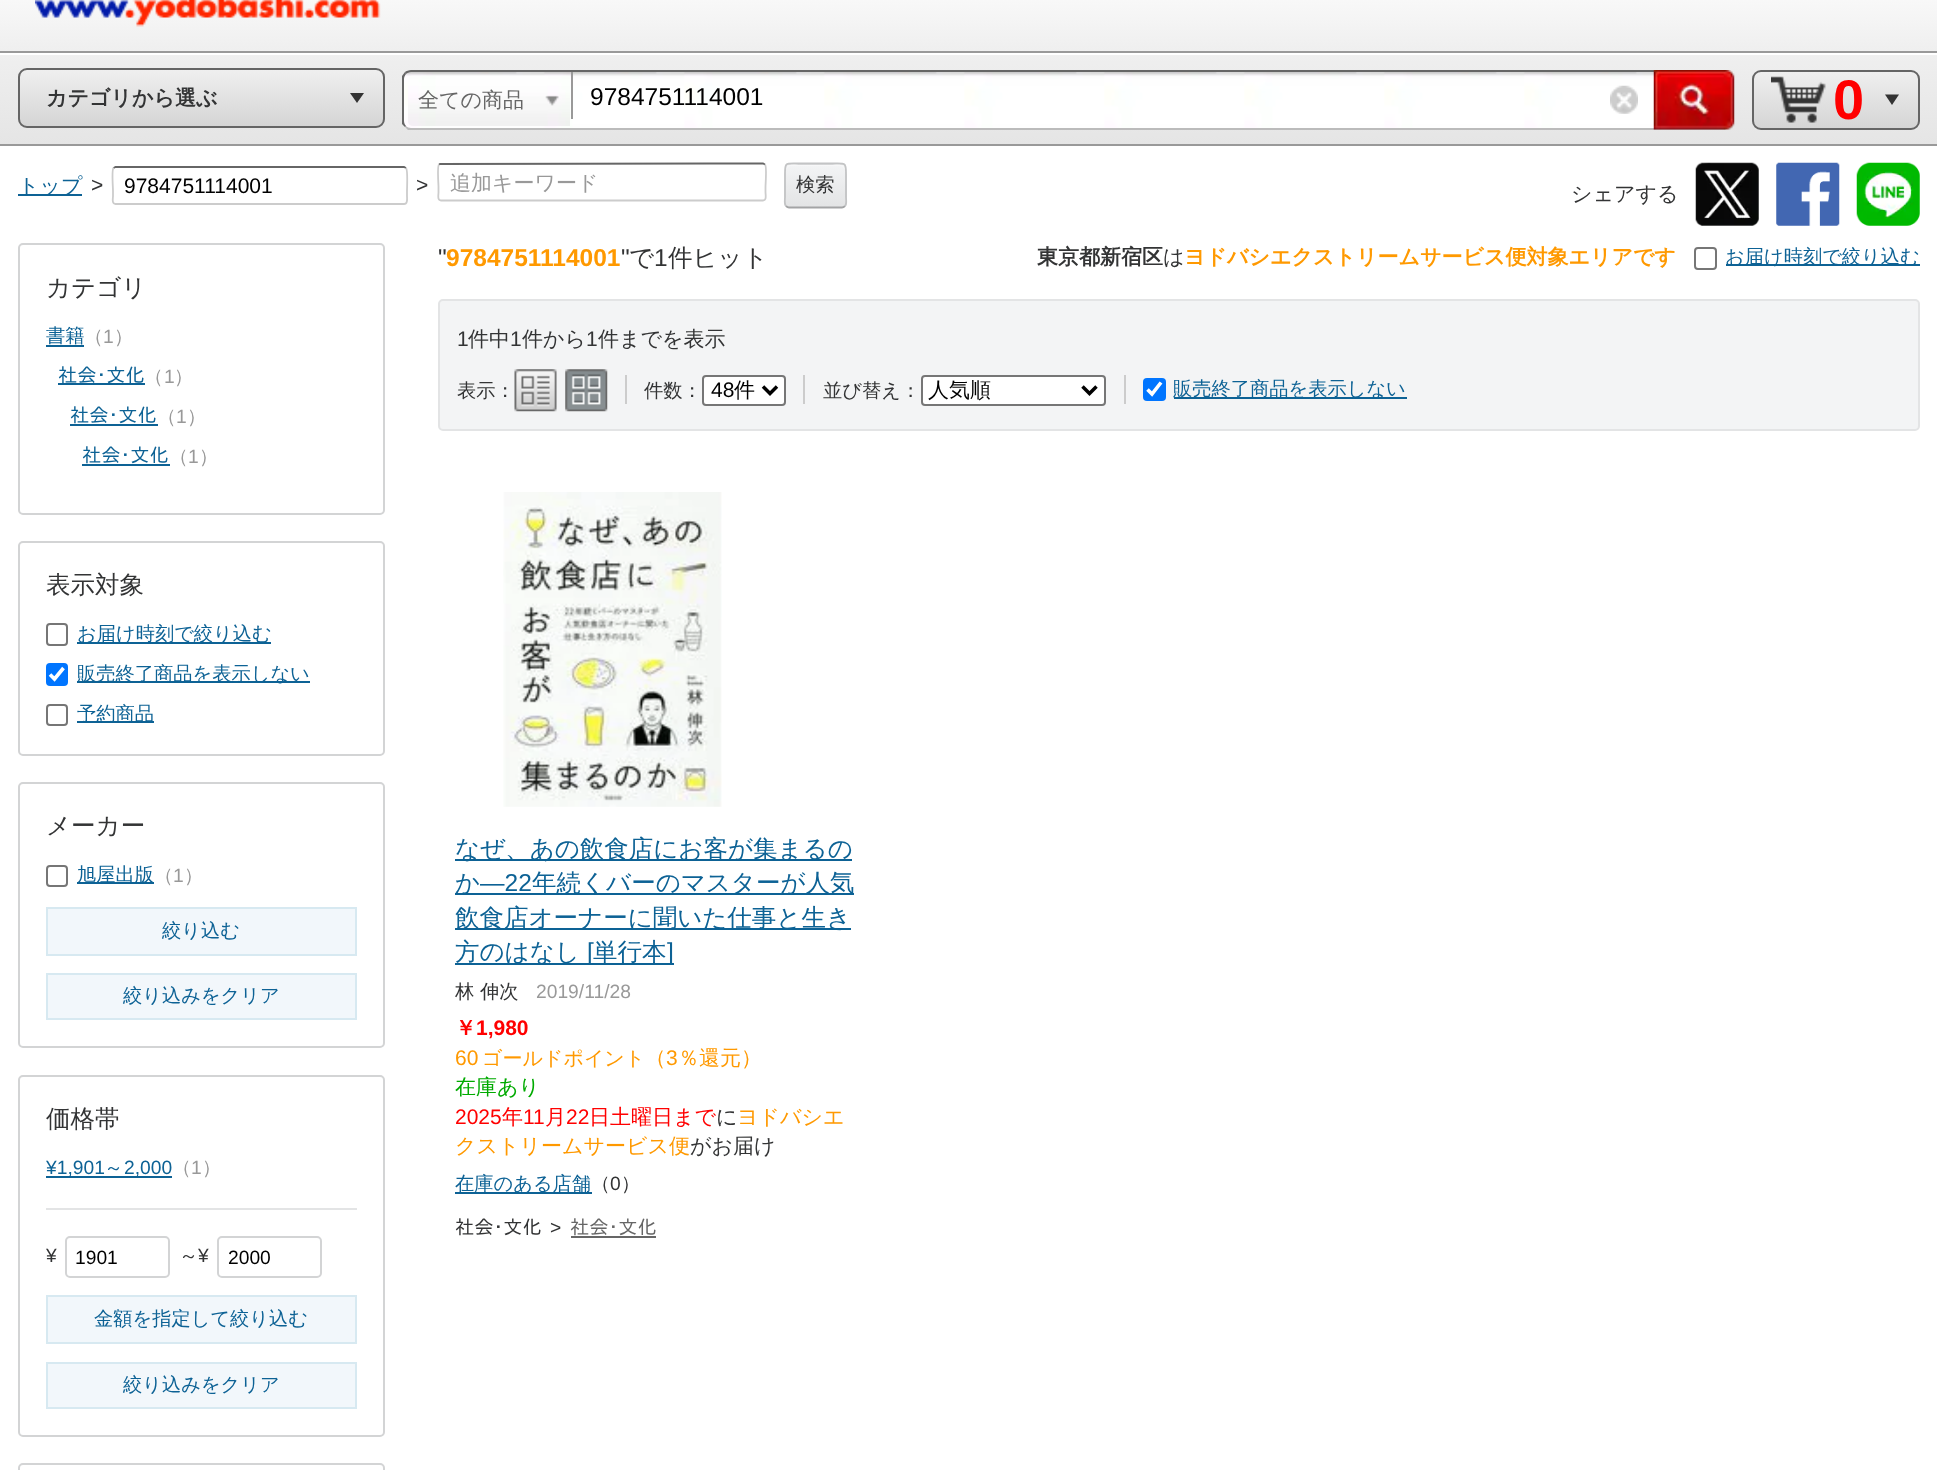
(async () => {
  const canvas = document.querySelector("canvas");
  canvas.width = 1937;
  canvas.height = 1470;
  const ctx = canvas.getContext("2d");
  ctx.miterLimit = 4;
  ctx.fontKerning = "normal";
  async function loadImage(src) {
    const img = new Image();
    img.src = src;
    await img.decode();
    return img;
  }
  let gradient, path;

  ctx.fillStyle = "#ffffff";
  ctx.fillRect(0, 0, 1937, 1470);
  gradient = ctx.createLinearGradient(969, -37, 969, 51);
  gradient.addColorStop(0, "#ffffff");
  gradient.addColorStop(1, "#efefef");
  ctx.fillStyle = gradient;
  ctx.fillRect(0, 0, 1937, 51);
  ctx.fillStyle = "#999999";
  ctx.fillRect(0, 51, 1937, 2);
  ctx.drawImage(await loadImage("img/1.png"), 35, 0, 346, 27);
  gradient = ctx.createLinearGradient(969, 54, 969, 144);
  gradient.addColorStop(0, "#efefef");
  gradient.addColorStop(1, "#e5e5e5");
  ctx.fillStyle = gradient;
  ctx.fillRect(0, 55, 1937, 89);
  ctx.fillStyle = "#999999";
  ctx.fillRect(0, 144, 1937, 2);
  ctx.save();
  ctx.beginPath();
  ctx.roundRect(18, 68, 367, 60, 9);
  ctx.clip();
  gradient = ctx.createLinearGradient(201, 70, 201, 126);
  gradient.addColorStop(0, "#efefef");
  gradient.addColorStop(1, "#d5d5d5");
  ctx.fillStyle = gradient;
  ctx.fillRect(18, 70, 367, 56);
  ctx.restore();
  ctx.beginPath();
  ctx.roundRect(19, 69, 365, 58, 8);
  ctx.strokeStyle = "#656565";
  ctx.lineWidth = 2;
  ctx.stroke();
  ctx.fillStyle = "#333333";
  path = new Path2D("M350 93H364L357 103Z");
  ctx.fill(path);
  ctx.drawImage(await loadImage("img/4.png"), 403, 71, 1323, 58);
  ctx.drawImage(await loadImage("img/2.png"), 408, 75, 162, 51);
  ctx.drawImage(await loadImage("img/3.png"), 545, 95, 14, 11);
  ctx.fillStyle = "#666666";
  path = new Path2D("M411 70C409 70 406 71 405 72L406 74C407 73 409 72 411 72H1724L1726 70Z");
  ctx.fill(path);
  ctx.fillStyle = "#bbbbbb";
  path = new Path2D("M1726 130H408L405 127L406 126C407 127 409 128 411 128H1724Z");
  ctx.fill(path);
  ctx.fillStyle = "#666666";
  path = new Path2D("M402 76L405 72L406 74C405 75 404 77 404 79V121C404 123 405 125 406 126L405 127L402 124Z");
  ctx.fill(path);
  ctx.fillStyle = "#999999";
  ctx.fillRect(571, 72, 2, 47);
  ctx.drawImage(await loadImage("img/5.png"), 1610, 85, 28, 29);
  ctx.drawImage(await loadImage("img/6.png"), 1653, 70, 82, 60);
  ctx.save();
  ctx.beginPath();
  ctx.roundRect(1752, 70, 168, 60, 9);
  ctx.clip();
  gradient = ctx.createLinearGradient(1836, 72, 1836, 128);
  gradient.addColorStop(0, "#efefef");
  gradient.addColorStop(1, "#d5d5d5");
  ctx.fillStyle = gradient;
  ctx.fillRect(1752, 72, 168, 56);
  ctx.restore();
  ctx.beginPath();
  ctx.roundRect(1753, 71, 166, 58, 8);
  ctx.stroke();
  ctx.drawImage(await loadImage("img/7.png"), 1771, 76, 55, 47);
  ctx.fillStyle = "#333333";
  path = new Path2D("M1885 94.5H1899L1892 105Z");
  ctx.fill(path);
  ctx.drawImage(await loadImage("img/8.png"), 1695, 162, 64, 64);
  ctx.drawImage(await loadImage("img/9.png"), 1776, 162, 64, 64);
  ctx.drawImage(await loadImage("img/10.png"), 1856, 162, 64, 64);
  ctx.fillStyle = "#0d6295";
  ctx.fillRect(18, 194, 64, 2);
  path = new Path2D("M113.5 168L115.5 167H404L406 168");
  ctx.strokeStyle = "#666666";
  ctx.lineWidth = 1.8;
  ctx.stroke(path);
  path = new Path2D("M406 168C408 170 407 187 407 191V196C407 198 408 204 404 204H115.5C111.5 204 113 198 113 196V191C113 187 111.5 170 113.5 168");
  ctx.strokeStyle = "#cccccc";
  ctx.stroke(path);
  path = new Path2D("M439 164.5L440 164L709.5 163.5H763L765 164.5");
  ctx.strokeStyle = "#666666";
  ctx.stroke(path);
  path = new Path2D("M765 164.5C767 166.5 765.5 183.5 765.5 187V192.5C765.5 194.5 767 200.5 763 200.5H441C437 200.5 438.5 194.5 438.5 192.5V187C438.5 183.5 437 166.5 439 164.5");
  ctx.strokeStyle = "#cccccc";
  ctx.stroke(path);
  ctx.save();
  ctx.beginPath();
  ctx.roundRect(784, 163, 63, 45, 5);
  ctx.clip();
  gradient = ctx.createLinearGradient(816, 123, 816, 165);
  gradient.addColorStop(0, "#f3f4f5");
  gradient.addColorStop(1, "#e3e4e5");
  ctx.fillStyle = gradient;
  ctx.fillRect(784, 163, 63, 2);
  gradient = ctx.createLinearGradient(816, 165, 816, 207);
  gradient.addColorStop(0, "#f3f4f5");
  gradient.addColorStop(1, "#e3e4e5");
  ctx.fillStyle = gradient;
  ctx.fillRect(784, 165, 63, 42);
  ctx.restore();
  path = new Path2D("M845 206C844 207 843 207.5 842 207.5H789C788 207.5 787 207 786 206");
  ctx.strokeStyle = "#a3a4a5";
  ctx.stroke(path);
  path = new Path2D("M786 206C784 204 785 199.5 785 197V174C785 162 786 163.5 798 163.5H833C845 163.5 846 162 846 174V197C846 199.5 847 204 845 206");
  ctx.strokeStyle = "#c3c4c5";
  ctx.stroke(path);
  ctx.fillStyle = "#f7f7f8";
  path = new Path2D("M791 166H840C843 166 845 169 845 172C845 163 839 165 832 165H799C792 165 786 163 786 172C786 169 788 166 791 166Z");
  ctx.fill(path);
  ctx.beginPath();
  ctx.roundRect(19, 244, 365, 270, 4);
  ctx.strokeStyle = "#d3d4d5";
  ctx.lineWidth = 2;
  ctx.stroke();
  for (const [x, y, w, h, color] of [
    [46, 345, 38, 2, "#0d6295"],
    [58, 383, 87, 2, "#0d6295"],
    [70, 424, 88, 2, "#0d6295"],
    [82, 464, 88, 2, "#0d6295"],
  ]) {
    ctx.fillStyle = color;
    ctx.fillRect(x, y, w, h);
  }
  ctx.beginPath();
  ctx.roundRect(19, 542, 365, 213, 4);
  ctx.stroke();
  ctx.beginPath();
  ctx.roundRect(47, 624, 20, 21, 3);
  ctx.strokeStyle = "#767676";
  ctx.stroke();
  ctx.fillRect(77, 642, 194, 2);
  ctx.fillStyle = "#0075ff";
  ctx.beginPath();
  ctx.roundRect(46, 663, 22, 23, 4);
  ctx.fill();
  path = new Path2D("M50 674.5L54.5 679L63.5 668");
  ctx.strokeStyle = "#ffffff";
  ctx.lineWidth = 3.6;
  ctx.stroke(path);
  ctx.fillStyle = "#0d6295";
  ctx.fillRect(77, 681, 233, 2);
  ctx.beginPath();
  ctx.roundRect(47, 705, 20, 20, 3);
  ctx.strokeStyle = "#767676";
  ctx.lineWidth = 2;
  ctx.stroke();
  ctx.fillRect(77, 721, 77, 2);
  ctx.beginPath();
  ctx.roundRect(19, 783, 365, 264, 4);
  ctx.strokeStyle = "#d3d4d5";
  ctx.stroke();
  ctx.beginPath();
  ctx.roundRect(47, 866, 20, 20, 3);
  ctx.strokeStyle = "#767676";
  ctx.stroke();
  ctx.fillRect(77, 882, 77, 2);
  ctx.fillStyle = "#f2f7fb";
  ctx.beginPath();
  ctx.rect(47, 908, 309, 47);
  ctx.fill();
  ctx.strokeStyle = "#d7e9f1";
  ctx.stroke();
  ctx.beginPath();
  ctx.rect(47, 974, 309, 45);
  ctx.fill();
  ctx.stroke();
  ctx.beginPath();
  ctx.roundRect(19, 1076, 365, 360, 4);
  ctx.strokeStyle = "#d3d4d5";
  ctx.stroke();
  ctx.fillStyle = "#0d6295";
  ctx.fillRect(46, 1176, 126, 2);
  ctx.fillStyle = "#e3e4e5";
  ctx.fillRect(46, 1208, 311, 2);
  ctx.beginPath();
  ctx.roundRect(66, 1237, 103, 40, 4);
  ctx.stroke();
  ctx.beginPath();
  ctx.roundRect(218, 1237, 103, 40, 4);
  ctx.stroke();
  ctx.fillStyle = "#f2f7fb";
  ctx.beginPath();
  ctx.rect(47, 1296, 309, 47);
  ctx.fill();
  ctx.strokeStyle = "#d7e9f1";
  ctx.stroke();
  ctx.beginPath();
  ctx.rect(47, 1363, 309, 45);
  ctx.fill();
  ctx.stroke();
  ctx.beginPath();
  ctx.roundRect(19, 1464, 365, 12, 4);
  ctx.strokeStyle = "#d3d4d5";
  ctx.stroke();
  ctx.beginPath();
  ctx.roundRect(1695, 248, 21, 21, 3);
  ctx.strokeStyle = "#767676";
  ctx.stroke();
  ctx.fillStyle = "#0d6295";
  ctx.fillRect(1726, 264, 194, 2);
  ctx.fillStyle = "#f3f4f5";
  ctx.beginPath();
  ctx.roundRect(439, 300, 1480, 130, 4);
  ctx.fill();
  ctx.strokeStyle = "#e3e4e5";
  ctx.stroke();
  ctx.drawImage(await loadImage("img/11.png"), 514, 369, 43, 43);
  ctx.drawImage(await loadImage("img/12.png"), 565, 369, 43, 43);
  ctx.fillStyle = "#cccccc";
  ctx.fillRect(625, 375, 2, 29);
  ctx.fillStyle = "#ffffff";
  ctx.beginPath();
  ctx.roundRect(703, 376, 82, 29, 3);
  ctx.fill();
  ctx.strokeStyle = "#767676";
  ctx.stroke();
  path = new Path2D("M763 386.5L770 393.5L777 386.5");
  ctx.strokeStyle = "#000000";
  ctx.lineWidth = 3.5;
  ctx.stroke(path);
  ctx.fillStyle = "#cccccc";
  ctx.fillRect(803, 375, 2, 29);
  ctx.fillStyle = "#ffffff";
  ctx.beginPath();
  ctx.roundRect(922, 376, 183, 29, 3);
  ctx.fill();
  ctx.strokeStyle = "#767676";
  ctx.lineWidth = 2;
  ctx.stroke();
  path = new Path2D("M1082.5 386.5L1089.5 393.5L1096.5 386.5");
  ctx.strokeStyle = "#000000";
  ctx.lineWidth = 3.5;
  ctx.stroke(path);
  ctx.fillStyle = "#cccccc";
  ctx.fillRect(1124, 375, 2, 29);
  ctx.fillStyle = "#0075ff";
  ctx.beginPath();
  ctx.roundRect(1143, 378, 23, 23, 4);
  ctx.fill();
  path = new Path2D("M1147.5 389.5L1152 394L1161 382.5");
  ctx.strokeStyle = "#ffffff";
  ctx.lineWidth = 3.6;
  ctx.stroke(path);
  ctx.fillStyle = "#0d6295";
  ctx.fillRect(1174, 397, 233, 2);
  ctx.drawImage(await loadImage("img/13.png"), 503, 492, 219, 315);
  for (const [x, y, w, h, color] of [
    [455, 859, 397, 2, "#0d6295"],
    [455, 893, 399, 2, "#0d6295"],
    [455, 928, 396, 2, "#0d6295"],
    [455, 963, 219, 2, "#0d6295"],
    [455, 1192, 137, 2, "#0d6295"],
    [571, 1236, 85, 2, "#666666"],
  ]) {
    ctx.fillStyle = color;
    ctx.fillRect(x, y, w, h);
  }
  ctx.font = "bold 21px WenQuanYi Zen Hei";
  ctx.fillStyle = "#333435";
  ctx.fillText("カテゴリから選ぶ", 46, 105);
  ctx.font = "500 21px WenQuanYi Zen Hei";
  ctx.fillStyle = "#666666";
  ctx.fillText("全ての商品", 418, 107);
  ctx.font = "24.5px Liberation Sans";
  ctx.fillStyle = "#000000";
  ctx.fillText("9784751114001", 590, 105);
  ctx.font = "bold 56px Liberation Sans";
  ctx.fillStyle = "#ff0000";
  ctx.fillText("0", 1833, 119);
  ctx.font = "500 21px WenQuanYi Zen Hei";
  ctx.fillStyle = "#333435";
  ctx.fillText("シェアする", 1571, 201);
  ctx.fillStyle = "#0d6295";
  ctx.fillText("トップ", 18, 193);
  ctx.font = "21px Liberation Sans";
  ctx.fillStyle = "#333435";
  ctx.fillText(">", 91, 192);
  ctx.fillStyle = "#000000";
  ctx.fillText("9784751114001", 124, 193);
  ctx.fillStyle = "#333435";
  ctx.fillText(">", 416, 192);
  ctx.font = "500 21px WenQuanYi Zen Hei";
  ctx.fillStyle = "#999999";
  ctx.fillText("追加キーワード", 450, 190);
  ctx.font = "500 19.25px WenQuanYi Zen Hei";
  ctx.fillStyle = "#333435";
  ctx.fillText("検索", 796, 191);
  ctx.font = "500 24.5px WenQuanYi Zen Hei";
  ctx.fillText("カテゴリ", 46, 296);
  ctx.font = "500 19.25px WenQuanYi Zen Hei";
  ctx.fillStyle = "#0d6295";
  ctx.fillText("書籍", 46, 342);
  ctx.fillStyle = "#999999";
  ctx.fillText("（", 84, 343);
  ctx.font = "19.25px Liberation Sans";
  ctx.fillText("1", 103, 343);
  ctx.font = "500 19.25px WenQuanYi Zen Hei";
  ctx.fillText("）", 114, 343);
  ctx.font = "19.25px IPAPGothic";
  ctx.fillStyle = "#0d6295";
  ctx.fillText("社会･文化", 58, 382);
  ctx.font = "500 19.25px WenQuanYi Zen Hei";
  ctx.fillStyle = "#999999";
  ctx.fillText("（", 144, 383);
  ctx.font = "19.25px Liberation Sans";
  ctx.fillText("1", 164, 383);
  ctx.font = "500 19.25px WenQuanYi Zen Hei";
  ctx.fillText("）", 174, 383);
  ctx.font = "19.25px IPAPGothic";
  ctx.fillStyle = "#0d6295";
  ctx.fillText("社会･文化", 70, 422);
  ctx.font = "500 19.25px WenQuanYi Zen Hei";
  ctx.fillStyle = "#999999";
  ctx.fillText("（", 157, 423);
  ctx.font = "19.25px Liberation Sans";
  ctx.fillText("1", 176, 423);
  ctx.font = "500 19.25px WenQuanYi Zen Hei";
  ctx.fillText("）", 187, 423);
  ctx.font = "19.25px IPAPGothic";
  ctx.fillStyle = "#0d6295";
  ctx.fillText("社会･文化", 82, 462);
  ctx.font = "500 19.25px WenQuanYi Zen Hei";
  ctx.fillStyle = "#999999";
  ctx.fillText("（", 169, 463);
  ctx.font = "19.25px Liberation Sans";
  ctx.fillText("1", 188, 463);
  ctx.font = "500 19.25px WenQuanYi Zen Hei";
  ctx.fillText("）", 199, 463);
  ctx.font = "500 24.5px WenQuanYi Zen Hei";
  ctx.fillStyle = "#333435";
  ctx.fillText("表示対象", 46, 593);
  ctx.font = "500 19.25px WenQuanYi Zen Hei";
  ctx.fillStyle = "#0d6295";
  for (const [text, x, y] of [
    ["お届け時刻で絞り込む", 77, 640],
    ["販売終了商品を表示しない", 77, 680],
    ["予約商品", 77, 720],
  ]) {
    ctx.fillText(text, x, y);
  }
  ctx.font = "500 24.5px WenQuanYi Zen Hei";
  ctx.fillStyle = "#333435";
  ctx.fillText("メーカー", 46, 834);
  ctx.font = "500 19.25px WenQuanYi Zen Hei";
  ctx.fillStyle = "#0d6295";
  ctx.fillText("旭屋出版", 77, 881);
  ctx.fillStyle = "#999999";
  ctx.fillText("（", 154, 882);
  ctx.font = "19.25px Liberation Sans";
  ctx.fillText("1", 173, 882);
  ctx.font = "500 19.25px WenQuanYi Zen Hei";
  ctx.fillText("）", 184, 882);
  ctx.fillStyle = "#0d6295";
  ctx.fillText("絞り込む", 162, 937);
  ctx.fillText("絞り込みをクリア", 123, 1002);
  ctx.font = "500 24.5px WenQuanYi Zen Hei";
  ctx.fillStyle = "#333435";
  ctx.fillText("価格帯", 46, 1127);
  ctx.font = "19.25px Liberation Sans";
  ctx.fillStyle = "#0d6295";
  ctx.fillText("¥1,901", 46, 1174);
  ctx.font = "500 19.25px WenQuanYi Zen Hei";
  ctx.fillText("～", 104, 1174);
  ctx.font = "19.25px Liberation Sans";
  ctx.fillText("2,000", 124, 1174);
  ctx.font = "500 19.25px WenQuanYi Zen Hei";
  ctx.fillStyle = "#999999";
  ctx.fillText("（", 172, 1174);
  ctx.font = "19.25px Liberation Sans";
  ctx.fillText("1", 191, 1174);
  ctx.font = "500 19.25px WenQuanYi Zen Hei";
  ctx.fillText("）", 202, 1174);
  ctx.font = "19.25px Liberation Sans";
  ctx.fillStyle = "#333435";
  ctx.fillText("¥", 46, 1262);
  ctx.fillStyle = "#000000";
  ctx.fillText("1901", 75, 1264);
  ctx.font = "500 19.25px WenQuanYi Zen Hei";
  ctx.fillStyle = "#333435";
  ctx.fillText("～", 179, 1262);
  ctx.font = "19.25px Liberation Sans";
  ctx.fillText("¥", 198, 1262);
  ctx.fillStyle = "#000000";
  ctx.fillText("2000", 228, 1264);
  ctx.font = "500 19.25px WenQuanYi Zen Hei";
  ctx.fillStyle = "#0d6295";
  ctx.fillText("金額を指定して絞り込む", 94, 1325);
  ctx.fillText("絞り込みをクリア", 123, 1391);
  ctx.font = "24.5px Liberation Sans";
  ctx.fillStyle = "#333435";
  ctx.fillText("\"", 438, 266);
  ctx.font = "bold 24.5px Liberation Sans";
  ctx.fillStyle = "#ff9900";
  ctx.fillText("9784751114001", 446, 266);
  ctx.font = "24.5px Liberation Sans";
  ctx.fillStyle = "#333435";
  ctx.fillText("\"", 621, 266);
  ctx.font = "500 24.5px WenQuanYi Zen Hei";
  ctx.fillText("で", 629, 266);
  ctx.font = "24.5px Liberation Sans";
  ctx.fillText("1", 654, 266);
  ctx.font = "500 24.5px WenQuanYi Zen Hei";
  ctx.fillText("件ヒット", 668, 266);
  ctx.font = "bold 21px WenQuanYi Zen Hei";
  ctx.fillText("東京都新宿区", 1037, 264);
  ctx.font = "500 21px WenQuanYi Zen Hei";
  ctx.fillText("は", 1163, 264);
  ctx.font = "bold 21px WenQuanYi Zen Hei";
  ctx.fillStyle = "#ff9900";
  ctx.fillText("ヨドバシエクストリームサービス便対象エリアです", 1184, 264);
  ctx.font = "500 19.25px WenQuanYi Zen Hei";
  ctx.fillStyle = "#0d6295";
  ctx.fillText("お届け時刻で絞り込む", 1725, 263);
  ctx.font = "21px Liberation Sans";
  ctx.fillStyle = "#333435";
  ctx.fillText("1", 457, 346);
  ctx.font = "500 21px WenQuanYi Zen Hei";
  ctx.fillText("件中", 468, 346);
  ctx.font = "21px Liberation Sans";
  ctx.fillText("1", 510, 346);
  ctx.font = "500 21px WenQuanYi Zen Hei";
  ctx.fillText("件から", 522, 346);
  ctx.font = "21px Liberation Sans";
  ctx.fillText("1", 586, 346);
  ctx.font = "500 21px WenQuanYi Zen Hei";
  ctx.fillText("件までを表示", 598, 346);
  ctx.font = "500 19.25px WenQuanYi Zen Hei";
  ctx.fillText("表示：", 457, 397);
  ctx.fillText("件数：", 644, 397);
  ctx.font = "21px Liberation Sans";
  ctx.fillStyle = "#000000";
  ctx.fillText("48", 711, 397);
  ctx.font = "500 21px WenQuanYi Zen Hei";
  ctx.fillText("件", 734, 397);
  ctx.font = "500 19.25px WenQuanYi Zen Hei";
  ctx.fillStyle = "#333435";
  ctx.fillText("並び替え：", 823, 397);
  ctx.font = "500 21px WenQuanYi Zen Hei";
  ctx.fillStyle = "#000000";
  ctx.fillText("人気順", 928, 397);
  ctx.font = "500 19.25px WenQuanYi Zen Hei";
  ctx.fillStyle = "#0d6295";
  ctx.fillText("販売終了商品を表示しない", 1173, 395);
  ctx.font = "500 24.5px WenQuanYi Zen Hei";
  ctx.fillText("なぜ、あの飲食店にお客が集まるの", 455, 857);
  ctx.fillText("か", 455, 891);
  ctx.font = "24.5px Liberation Sans";
  ctx.fillText("―22", 480, 891);
  ctx.font = "500 24.5px WenQuanYi Zen Hei";
  for (const [text, x, y] of [
    ["年続くバーのマスターが人気", 532, 891],
    ["飲食店オーナーに聞いた仕事と生き", 455, 926],
    ["方のはなし", 455, 960],
  ]) {
    ctx.fillText(text, x, y);
  }
  ctx.font = "24.5px Liberation Sans";
  ctx.fillText("[", 587, 960);
  ctx.font = "500 24.5px WenQuanYi Zen Hei";
  ctx.fillText("単行本", 593, 960);
  ctx.font = "24.5px Liberation Sans";
  ctx.fillText("]", 667, 960);
  ctx.font = "500 19.25px WenQuanYi Zen Hei";
  ctx.fillStyle = "#333435";
  ctx.fillText("林 伸次", 455, 998);
  ctx.font = "19.25px Liberation Sans";
  ctx.fillStyle = "#999999";
  ctx.fillText("2019/11/28", 536, 998);
  ctx.font = "bold 21px WenQuanYi Zen Hei";
  ctx.fillStyle = "#ff0000";
  ctx.fillText("￥", 455, 1035);
  ctx.font = "bold 21px Liberation Sans";
  ctx.fillText("1,980", 476, 1035);
  ctx.font = "21px Liberation Sans";
  ctx.fillStyle = "#ff9900";
  ctx.fillText("60", 455, 1065);
  ctx.font = "500 20px WenQuanYi Zen Hei";
  ctx.fillText("ゴールドポイント", 482, 1065);
  ctx.font = "500 21px WenQuanYi Zen Hei";
  ctx.fillText("（", 645, 1065);
  ctx.font = "21px Liberation Sans";
  ctx.fillText("3", 666, 1065);
  ctx.font = "500 21px WenQuanYi Zen Hei";
  ctx.fillText("％還元）", 678, 1065);
  ctx.fillStyle = "#00aa00";
  ctx.fillText("在庫あり", 455, 1094);
  ctx.font = "21px Liberation Sans";
  ctx.fillStyle = "#ff0000";
  ctx.fillText("2025", 455, 1124);
  ctx.font = "500 21px WenQuanYi Zen Hei";
  ctx.fillText("年", 502, 1124);
  ctx.font = "21px Liberation Sans";
  ctx.fillText("11", 523, 1124);
  ctx.font = "500 21px WenQuanYi Zen Hei";
  ctx.fillText("月", 545, 1124);
  ctx.font = "21px Liberation Sans";
  ctx.fillText("22", 566, 1124);
  ctx.font = "500 21px WenQuanYi Zen Hei";
  ctx.fillText("日土曜日まで", 589, 1124);
  ctx.fillStyle = "#333435";
  ctx.fillText("に", 716, 1124);
  ctx.fillStyle = "#ff9900";
  ctx.fillText("ヨドバシエ", 737, 1124);
  ctx.fillText("クストリームサービス便", 455, 1153);
  ctx.fillStyle = "#333435";
  ctx.fillText("がお届け", 690, 1153);
  ctx.font = "500 19.25px WenQuanYi Zen Hei";
  ctx.fillStyle = "#0d6295";
  ctx.fillText("在庫のある店舗", 455, 1190);
  ctx.fillStyle = "#333435";
  ctx.fillText("（", 591, 1190);
  ctx.font = "19.25px Liberation Sans";
  ctx.fillText("0", 610, 1190);
  ctx.font = "500 19.25px WenQuanYi Zen Hei";
  ctx.fillText("）", 621, 1190);
  ctx.font = "19.25px IPAPGothic";
  ctx.fillText("社会･文化", 455, 1234);
  ctx.font = "19.25px Liberation Sans";
  ctx.fillText(">", 550, 1234);
  ctx.font = "19.25px IPAPGothic";
  ctx.fillStyle = "#666666";
  ctx.fillText("社会･文化", 570, 1234);
})();
